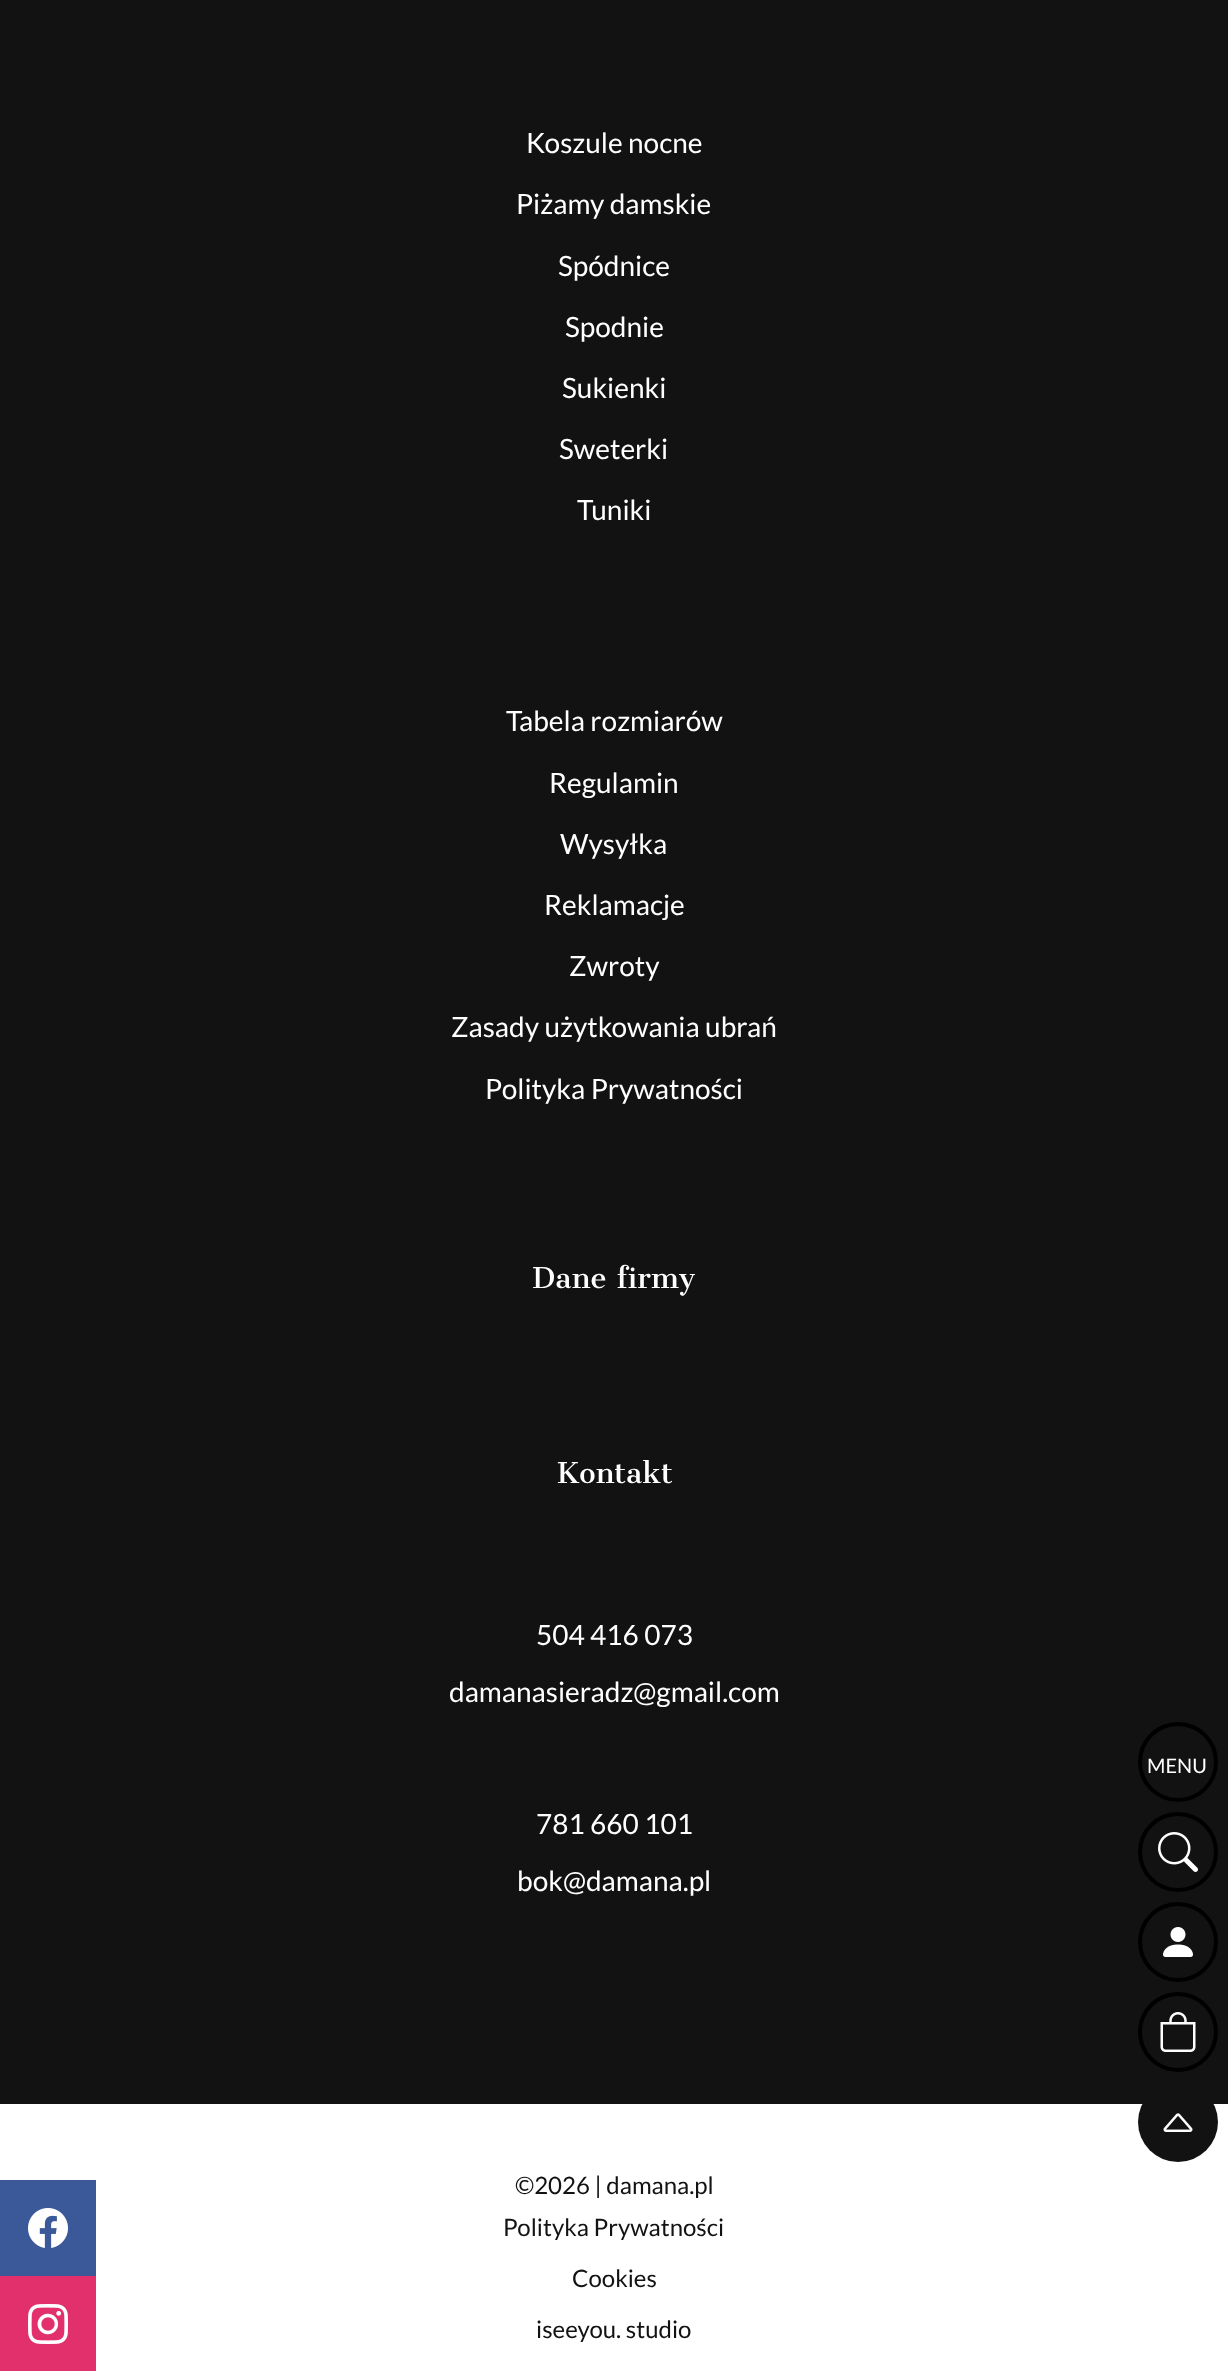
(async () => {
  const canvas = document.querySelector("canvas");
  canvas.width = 1228;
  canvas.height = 2371;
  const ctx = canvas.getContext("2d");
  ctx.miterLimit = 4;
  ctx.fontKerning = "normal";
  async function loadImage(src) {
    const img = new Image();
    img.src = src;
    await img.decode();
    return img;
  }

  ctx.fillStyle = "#ffffff";
  ctx.fillRect(0, 0, 1228, 2371);
  ctx.fillStyle = "#121212";
  ctx.fillRect(0, 0, 1228, 2104);
  ctx.beginPath();
  ctx.arc(1178, 1762, 38, 0, Math.PI * 2);
  ctx.strokeStyle = "#000000";
  ctx.lineWidth = 4;
  ctx.stroke();
  ctx.beginPath();
  ctx.arc(1178, 1852, 38, 0, Math.PI * 2);
  ctx.stroke();
  ctx.drawImage(await loadImage("img/1.png"), 1158, 1832, 40, 40);
  ctx.beginPath();
  ctx.arc(1178, 1942, 38, 0, Math.PI * 2);
  ctx.stroke();
  ctx.drawImage(await loadImage("img/2.png"), 1163, 1927, 30, 30);
  ctx.beginPath();
  ctx.arc(1178, 2032, 38, 0, Math.PI * 2);
  ctx.stroke();
  ctx.drawImage(await loadImage("img/3.png"), 1160, 2012, 36, 40);
  ctx.beginPath();
  ctx.arc(1178, 2122, 40, 0, Math.PI * 2);
  ctx.fill();
  ctx.drawImage(await loadImage("img/4.png"), 1163, 2113, 30, 19);
  ctx.fillStyle = "#3b5998";
  ctx.fillRect(0, 2180, 96, 96);
  ctx.drawImage(await loadImage("img/5.png"), 28, 2208, 40, 40);
  ctx.fillStyle = "#e1306c";
  ctx.fillRect(0, 2276, 96, 95);
  ctx.drawImage(await loadImage("img/6.png"), 28, 2304, 40, 40);
  ctx.font = "28px Lato";
  ctx.fillStyle = "#ffffff";
  for (const [text, x, y] of [
    ["Koszule nocne", 526, 153],
    ["Piżamy damskie", 516, 214],
    ["Spódnice", 558, 276],
    ["Spodnie", 565, 337],
    ["Sukienki", 562, 398],
    ["Sweterki", 559, 459],
    ["Tuniki", 577, 520],
    ["Tabela rozmiarów", 506, 731],
    ["Regulamin", 549, 793],
    ["Wysyłka", 560, 854],
    ["Reklamacje", 544, 915],
    ["Zwroty", 569, 976],
    ["Zasady użytkowania ubrań", 451, 1037],
    ["Polityka Prywatności", 485, 1099],
  ]) {
    ctx.fillText(text, x, y);
  }
  ctx.font = "28px Cantata One";
  ctx.fillText("Dane firmy", 532, 1288);
  ctx.fillText("Kontakt", 556, 1483);
  ctx.font = "28px Lato";
  for (const [text, x, y] of [
    ["504 416 073", 536, 1645],
    ["damanasieradz@gmail.com", 449, 1702],
    ["781 660 101", 536, 1834],
    ["bok@damana.pl", 517, 1891],
  ]) {
    ctx.fillText(text, x, y);
  }
  ctx.font = "20px Lato";
  ctx.fillText("MENU", 1147, 1773);
  ctx.font = "24px Lato";
  ctx.fillStyle = "#121212";
  for (const [text, x, y] of [
    ["©2026 | damana.pl", 515, 2194],
    ["Polityka Prywatności", 503, 2236],
    ["Cookies", 572, 2287],
    ["iseeyou. studio", 536, 2338],
  ]) {
    ctx.fillText(text, x, y);
  }
})();
